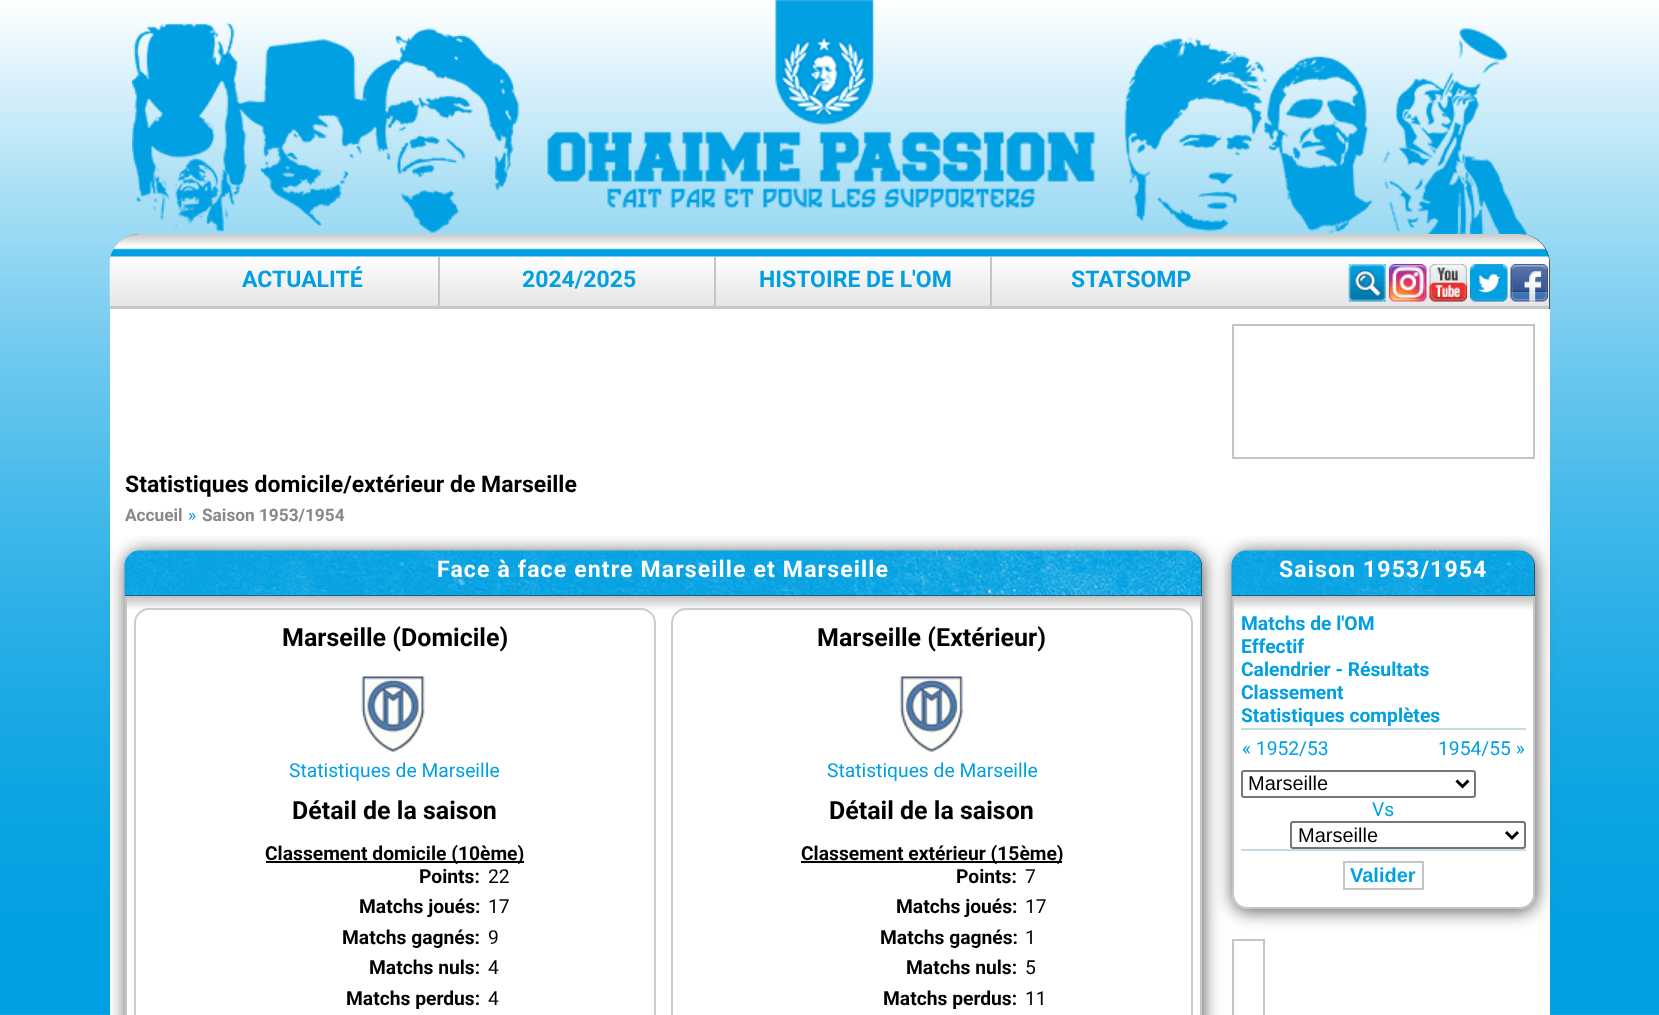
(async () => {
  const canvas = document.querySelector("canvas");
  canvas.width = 1659;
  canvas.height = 1015;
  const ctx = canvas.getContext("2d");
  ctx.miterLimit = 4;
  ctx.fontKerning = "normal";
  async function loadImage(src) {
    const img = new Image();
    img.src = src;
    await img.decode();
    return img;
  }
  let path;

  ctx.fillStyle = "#ffffff";
  ctx.fillRect(0, 0, 1659, 1015);
  ctx.drawImage(await loadImage("img/1.png"), 0, 0, 1659, 1015);
  ctx.drawImage(await loadImage("img/2.png"), 132, 0, 1395, 234);
  ctx.fillStyle = "#1c1c1c";
  ctx.beginPath();
  ctx.roundRect(110, 234, 1440, 75, [30, 30, 0, 0]);
  ctx.fill();
  ctx.drawImage(await loadImage("img/3.png"), 109, 234, 1441, 75);
  for (const [x, y, w, h, color] of [
    [438, 257, 2, 49, "#c4c5c7"],
    [714, 257, 2, 49, "#c4c5c7"],
    [990, 257, 2, 49, "#c4c5c7"],
    [1384, 266, 2, 34, "#c3c3c3"],
  ]) {
    ctx.fillStyle = color;
    ctx.fillRect(x, y, w, h);
  }
  ctx.drawImage(await loadImage("img/6.png"), 1389, 264, 38, 38);
  ctx.save();
  ctx.beginPath();
  ctx.rect(1349, 264, 37, 38);
  ctx.clip();
  ctx.strokeStyle = "#69c5ea";
  ctx.lineWidth = 2;
  ctx.strokeRect(1350, 265, 53, 36);
  ctx.restore();
  ctx.drawImage(await loadImage("img/4.png"), 1348, 264, 38, 38);
  ctx.drawImage(await loadImage("img/5.png"), 1348, 264, 38, 38);
  ctx.drawImage(await loadImage("img/7.png"), 1429, 264, 38, 38);
  ctx.drawImage(await loadImage("img/8.png"), 1470, 264, 38, 38);
  ctx.drawImage(await loadImage("img/9.png"), 1510, 264, 38, 38);
  ctx.fillStyle = "#ffffff";
  ctx.fillRect(110, 309, 1440, 188);
  ctx.strokeStyle = "#c4c5c7";
  ctx.lineWidth = 2;
  ctx.strokeRect(1233, 325, 301, 133);
  ctx.fillRect(110, 536, 1440, 479);
  ctx.fillStyle = "#555555";
  ctx.filter = "blur(9px)";
  ctx.beginPath();
  ctx.roundRect(126, 552, 1077, 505, 15);
  ctx.fill();
  ctx.filter = "none";
  ctx.filter = "blur(9px)";
  ctx.beginPath();
  ctx.roundRect(1233, 552, 303, 359, 15);
  ctx.fill();
  ctx.filter = "none";
  ctx.fillStyle = "#ffffff";
  ctx.fillRect(110, 497, 1440, 39);
  ctx.fillStyle = "#1c1c1c";
  ctx.beginPath();
  ctx.roundRect(125, 551, 1077, 45, [15, 15, 0, 0]);
  ctx.fill();
  ctx.drawImage(await loadImage("img/10.png"), 124, 550, 1078, 46);
  ctx.fillStyle = "#ffffff";
  ctx.fillRect(127, 598, 1073, 417);
  ctx.drawImage(await loadImage("img/11.png"), 127, 598, 1073, 12);
  ctx.strokeRect(126, 597, 1075, 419);
  ctx.beginPath();
  ctx.roundRect(135, 609, 520, 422, 14);
  ctx.strokeStyle = "#cccccc";
  ctx.stroke();
  ctx.drawImage(await loadImage("img/12.png"), 361, 676, 64, 76);
  ctx.fillStyle = "#000000";
  ctx.fillRect(266, 861, 258, 2);
  ctx.beginPath();
  ctx.roundRect(672, 609, 520, 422, 14);
  ctx.stroke();
  ctx.drawImage(await loadImage("img/13.png"), 899, 676, 65, 76);
  ctx.fillRect(801, 861, 261, 2);
  ctx.fillStyle = "#1c1c1c";
  ctx.beginPath();
  ctx.roundRect(1232, 551, 303, 45, [15, 15, 0, 0]);
  ctx.fill();
  ctx.drawImage(await loadImage("img/14.png"), 1231, 550, 304, 46);
  ctx.fillStyle = "#ffffff";
  ctx.beginPath();
  ctx.roundRect(1232, 596, 303, 313, [0, 0, 15, 15]);
  ctx.fill();
  ctx.drawImage(await loadImage("img/15.png"), 1234, 598, 299, 12);
  ctx.beginPath();
  ctx.roundRect(1233, 597, 301, 311, [0, 0, 14, 14]);
  ctx.strokeStyle = "#c4c5c7";
  ctx.stroke();
  ctx.fillStyle = "#c5dce5";
  ctx.fillRect(1241, 728, 285, 2);
  ctx.beginPath();
  ctx.roundRect(1242, 771, 233, 26, 2);
  ctx.strokeStyle = "#767676";
  ctx.stroke();
  path = new Path2D("M1456.5 780.5L1462.5 786.5L1468.5 780.5");
  ctx.strokeStyle = "#000000";
  ctx.lineWidth = 3;
  ctx.stroke(path);
  ctx.beginPath();
  ctx.roundRect(1291, 822, 234, 26, 2);
  ctx.strokeStyle = "#767676";
  ctx.lineWidth = 2;
  ctx.stroke();
  path = new Path2D("M1506 832L1512 838L1518 832");
  ctx.strokeStyle = "#000000";
  ctx.lineWidth = 3;
  ctx.stroke(path);
  ctx.fillRect(1241, 849, 285, 2);
  ctx.strokeStyle = "#c4c5c7";
  ctx.lineWidth = 2;
  ctx.strokeRect(1344, 862, 79, 27);
  ctx.strokeRect(1233, 940, 31, 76);
  ctx.font = "bold 23px Roboto";
  ctx.fillStyle = "#00a0e2";
  for (const [text, x, y] of [
    ["ACTUALITÉ", 242, 287],
    ["2024/2025", 522, 287],
    ["HISTOIRE DE L'OM", 759, 287],
    ["STATSOMP", 1071, 287],
  ]) {
    ctx.fillText(text, x, y);
  }
  ctx.fillStyle = "#000000";
  ctx.fillText("Statistiques domicile/extérieur de Marseille", 125, 492);
  ctx.font = "bold 17.25px Roboto";
  ctx.fillStyle = "#888888";
  ctx.fillText("Accueil", 125, 521);
  ctx.font = "17.25px Roboto";
  ctx.fillStyle = "#00a0e2";
  ctx.fillText("»", 188, 521);
  ctx.font = "bold 17.25px Roboto";
  ctx.fillStyle = "#888888";
  ctx.fillText("Saison 1953/1954", 202, 521);
  ctx.letterSpacing = "1.15px";
  ctx.font = "bold 23px Roboto";
  ctx.fillStyle = "#ffffff";
  ctx.fillText("Face à face entre Marseille et Marseille", 437, 577);
  ctx.letterSpacing = "0px";
  ctx.font = "bold 25px Roboto";
  ctx.fillStyle = "#000000";
  ctx.fillText("Marseille (Domicile)", 282, 646);
  ctx.font = "19.25px Roboto";
  ctx.fillStyle = "#00a0e2";
  ctx.fillText("Statistiques de Marseille", 289, 777);
  ctx.font = "bold 25px Roboto";
  ctx.fillStyle = "#000000";
  ctx.fillText("Détail de la saison", 292, 819);
  ctx.font = "bold 19.25px Roboto";
  ctx.fillText("Classement domicile (10ème)", 265, 860);
  ctx.fillText("Points:", 419, 883);
  ctx.font = "19.25px Roboto";
  ctx.fillText("22", 488, 883);
  ctx.font = "bold 19.25px Roboto";
  ctx.fillText("Matchs joués:", 359, 913);
  ctx.font = "19.25px Roboto";
  ctx.fillText("17", 488, 913);
  ctx.font = "bold 19.25px Roboto";
  ctx.fillText("Matchs gagnés:", 342, 944);
  ctx.font = "19.25px Roboto";
  ctx.fillText("9", 488, 944);
  ctx.font = "bold 19.25px Roboto";
  ctx.fillText("Matchs nuls:", 369, 974);
  ctx.font = "19.25px Roboto";
  ctx.fillText("4", 488, 974);
  ctx.font = "bold 19.25px Roboto";
  ctx.fillText("Matchs perdus:", 346, 1005);
  ctx.font = "19.25px Roboto";
  ctx.fillText("4", 488, 1005);
  ctx.font = "bold 25px Roboto";
  ctx.fillText("Marseille (Extérieur)", 817, 646);
  ctx.font = "19.25px Roboto";
  ctx.fillStyle = "#00a0e2";
  ctx.fillText("Statistiques de Marseille", 827, 777);
  ctx.font = "bold 25px Roboto";
  ctx.fillStyle = "#000000";
  ctx.fillText("Détail de la saison", 829, 819);
  ctx.font = "bold 19.25px Roboto";
  ctx.fillText("Classement extérieur (15ème)", 801, 860);
  ctx.fillText("Points:", 956, 883);
  ctx.font = "19.25px Roboto";
  ctx.fillText("7", 1025, 883);
  ctx.font = "bold 19.25px Roboto";
  ctx.fillText("Matchs joués:", 896, 913);
  ctx.font = "19.25px Roboto";
  ctx.fillText("17", 1025, 913);
  ctx.font = "bold 19.25px Roboto";
  ctx.fillText("Matchs gagnés:", 880, 944);
  ctx.font = "19.25px Roboto";
  ctx.fillText("1", 1025, 944);
  ctx.font = "bold 19.25px Roboto";
  ctx.fillText("Matchs nuls:", 906, 974);
  ctx.font = "19.25px Roboto";
  ctx.fillText("5", 1025, 974);
  ctx.font = "bold 19.25px Roboto";
  ctx.fillText("Matchs perdus:", 883, 1005);
  ctx.font = "19.25px Roboto";
  ctx.fillText("11", 1025, 1005);
  ctx.letterSpacing = "1.15px";
  ctx.font = "bold 23px Roboto";
  ctx.fillStyle = "#ffffff";
  ctx.fillText("Saison 1953/1954", 1279, 577);
  ctx.letterSpacing = "0px";
  ctx.font = "bold 19.25px Roboto";
  ctx.fillStyle = "#00a0e2";
  for (const [text, x, y] of [
    ["Matchs de l'OM", 1241, 630],
    ["Effectif", 1241, 653],
    ["Calendrier - Résultats", 1241, 676],
    ["Classement", 1241, 699],
    ["Statistiques complètes", 1241, 722],
  ]) {
    ctx.fillText(text, x, y);
  }
  ctx.font = "19.25px Roboto";
  ctx.fillText("« 1952/53", 1242, 755);
  ctx.fillText("1954/55 »", 1438, 755);
  ctx.font = "20px Liberation Sans";
  ctx.fillStyle = "#000000";
  ctx.fillText("Marseille", 1248, 790);
  ctx.font = "19.25px Roboto";
  ctx.fillStyle = "#00a0e2";
  ctx.fillText("Vs", 1372, 816);
  ctx.font = "20px Liberation Sans";
  ctx.fillStyle = "#000000";
  ctx.fillText("Marseille", 1298, 842);
  ctx.font = "bold 20px Liberation Sans";
  ctx.fillStyle = "#00a0e2";
  ctx.fillText("Valider", 1350, 882);
})();
